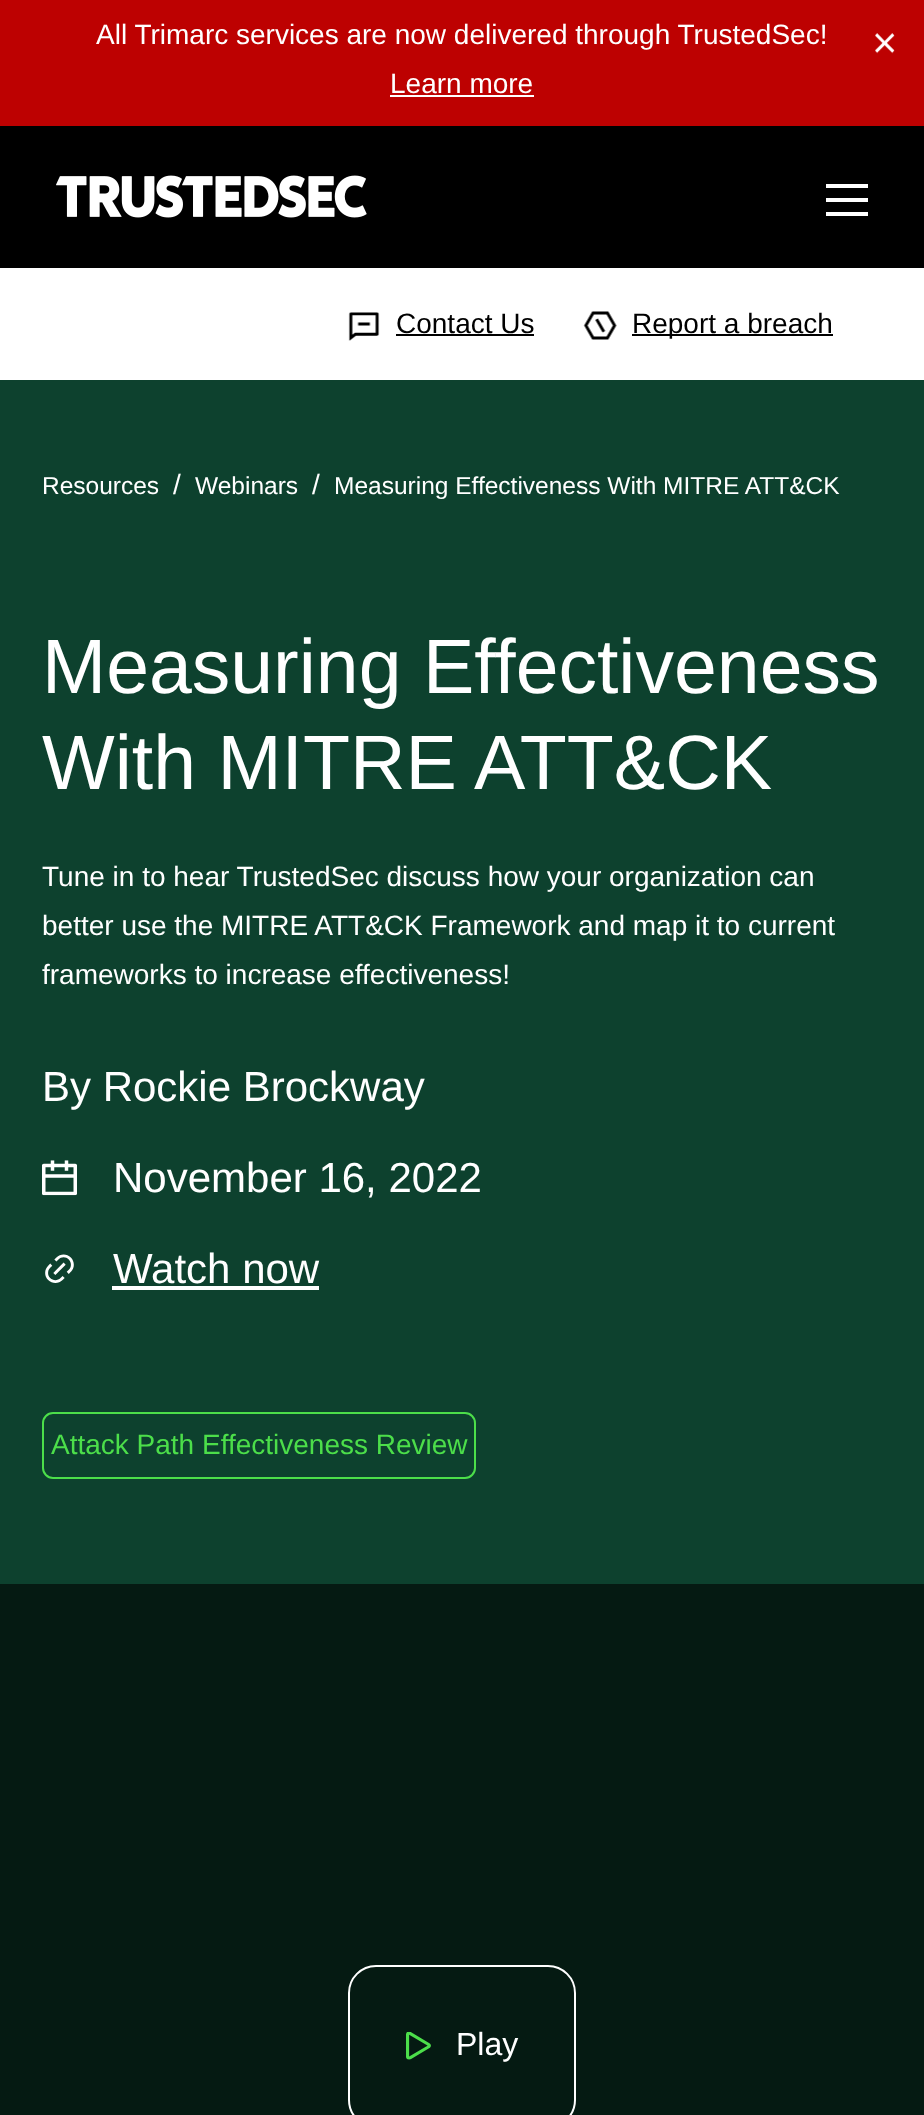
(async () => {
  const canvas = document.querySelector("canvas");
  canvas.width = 924;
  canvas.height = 2115;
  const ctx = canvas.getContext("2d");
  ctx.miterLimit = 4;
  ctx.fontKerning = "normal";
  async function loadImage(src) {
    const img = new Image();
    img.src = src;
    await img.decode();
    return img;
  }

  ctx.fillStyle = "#ffffff";
  ctx.fillRect(0, 0, 924, 2115);
  ctx.fillStyle = "#bd0101";
  ctx.fillRect(0, 0, 924, 126);
  ctx.drawImage(await loadImage("img/1.png"), 875, 33, 20, 21);
  ctx.fillStyle = "#ffffff";
  ctx.fillRect(390, 95, 144, 2);
  ctx.fillStyle = "#000000";
  ctx.fillRect(0, 126, 924, 142);
  ctx.drawImage(await loadImage("img/2.png"), 56, 175, 311, 43);
  for (const [x, y, w, h, color] of [
    [826, 184, 42, 4, "#ffffff"],
    [826, 198, 42, 4, "#ffffff"],
    [826, 212, 42, 4, "#ffffff"],
  ]) {
    ctx.fillStyle = color;
    ctx.fillRect(x, y, w, h);
  }
  ctx.drawImage(await loadImage("img/3.png"), 348, 312, 32, 29);
  ctx.fillStyle = "#000000";
  ctx.fillRect(396, 334, 138, 2);
  ctx.drawImage(await loadImage("img/4.png"), 583, 311, 34, 29);
  ctx.fillRect(632, 334, 201, 2);
  ctx.fillStyle = "#0d412e";
  ctx.fillRect(0, 380, 924, 1204);
  ctx.drawImage(await loadImage("img/5.png"), 42, 1160, 35, 36);
  ctx.drawImage(await loadImage("img/6.png"), 45, 1254, 29, 29);
  ctx.fillStyle = "#ffffff";
  ctx.fillRect(112, 1286, 207, 4);
  ctx.beginPath();
  ctx.roundRect(43, 1413, 432, 65, 10);
  ctx.strokeStyle = "#4cde4a";
  ctx.lineWidth = 2;
  ctx.stroke();
  ctx.fillStyle = "#051a12";
  ctx.fillRect(0, 1584, 924, 531);
  ctx.beginPath();
  ctx.roundRect(349, 1966, 226, 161, 27);
  ctx.strokeStyle = "#ffffff";
  ctx.stroke();
  ctx.drawImage(await loadImage("img/7.png"), 406, 2031, 25, 29);
  ctx.font = "28px Liberation Sans";
  ctx.fillStyle = "#ffffff";
  ctx.fillText("All Trimarc services are now delivered through TrustedSec!", 96, 44);
  ctx.fillText("Learn more", 390, 93);
  ctx.fillStyle = "#000000";
  ctx.fillText("Contact Us", 396, 333);
  ctx.fillText("Report a breach", 632, 333);
  ctx.font = "24.5px Liberation Sans";
  ctx.fillStyle = "#ffffff";
  ctx.fillText("Resources", 42, 494);
  ctx.font = "28px Liberation Sans";
  ctx.fillText("/", 173, 494);
  ctx.font = "24.5px Liberation Sans";
  ctx.fillText("Webinars", 195, 494);
  ctx.font = "28px Liberation Sans";
  ctx.fillText("/", 312, 494);
  ctx.font = "24.5px Liberation Sans";
  ctx.fillText("Measuring Effectiveness With MITRE ATT&CK", 334, 494);
  ctx.font = "77px Liberation Sans";
  ctx.fillText("Measuring Effectiveness", 42, 693);
  ctx.fillText("With MITRE ATT&CK", 42, 789);
  ctx.font = "28px Liberation Sans";
  for (const [text, x, y] of [
    ["Tune in to hear TrustedSec discuss how your organization can", 42, 886],
    ["better use the MITRE ATT&CK Framework and map it to current", 42, 935],
    ["frameworks to increase effectiveness!", 42, 984],
  ]) {
    ctx.fillText(text, x, y);
  }
  ctx.font = "42px Liberation Sans";
  for (const [text, x, y] of [
    ["By Rockie Brockway", 42, 1101],
    ["November 16, 2022", 113, 1192],
    ["Watch now", 113, 1283],
  ]) {
    ctx.fillText(text, x, y);
  }
  ctx.font = "28px Liberation Sans";
  ctx.fillStyle = "#4cde4a";
  ctx.fillText("Attack Path Effectiveness Review", 51, 1454);
  ctx.font = "32px Liberation Sans";
  ctx.fillStyle = "#ffffff";
  ctx.fillText("Play", 456, 2055);
})();
